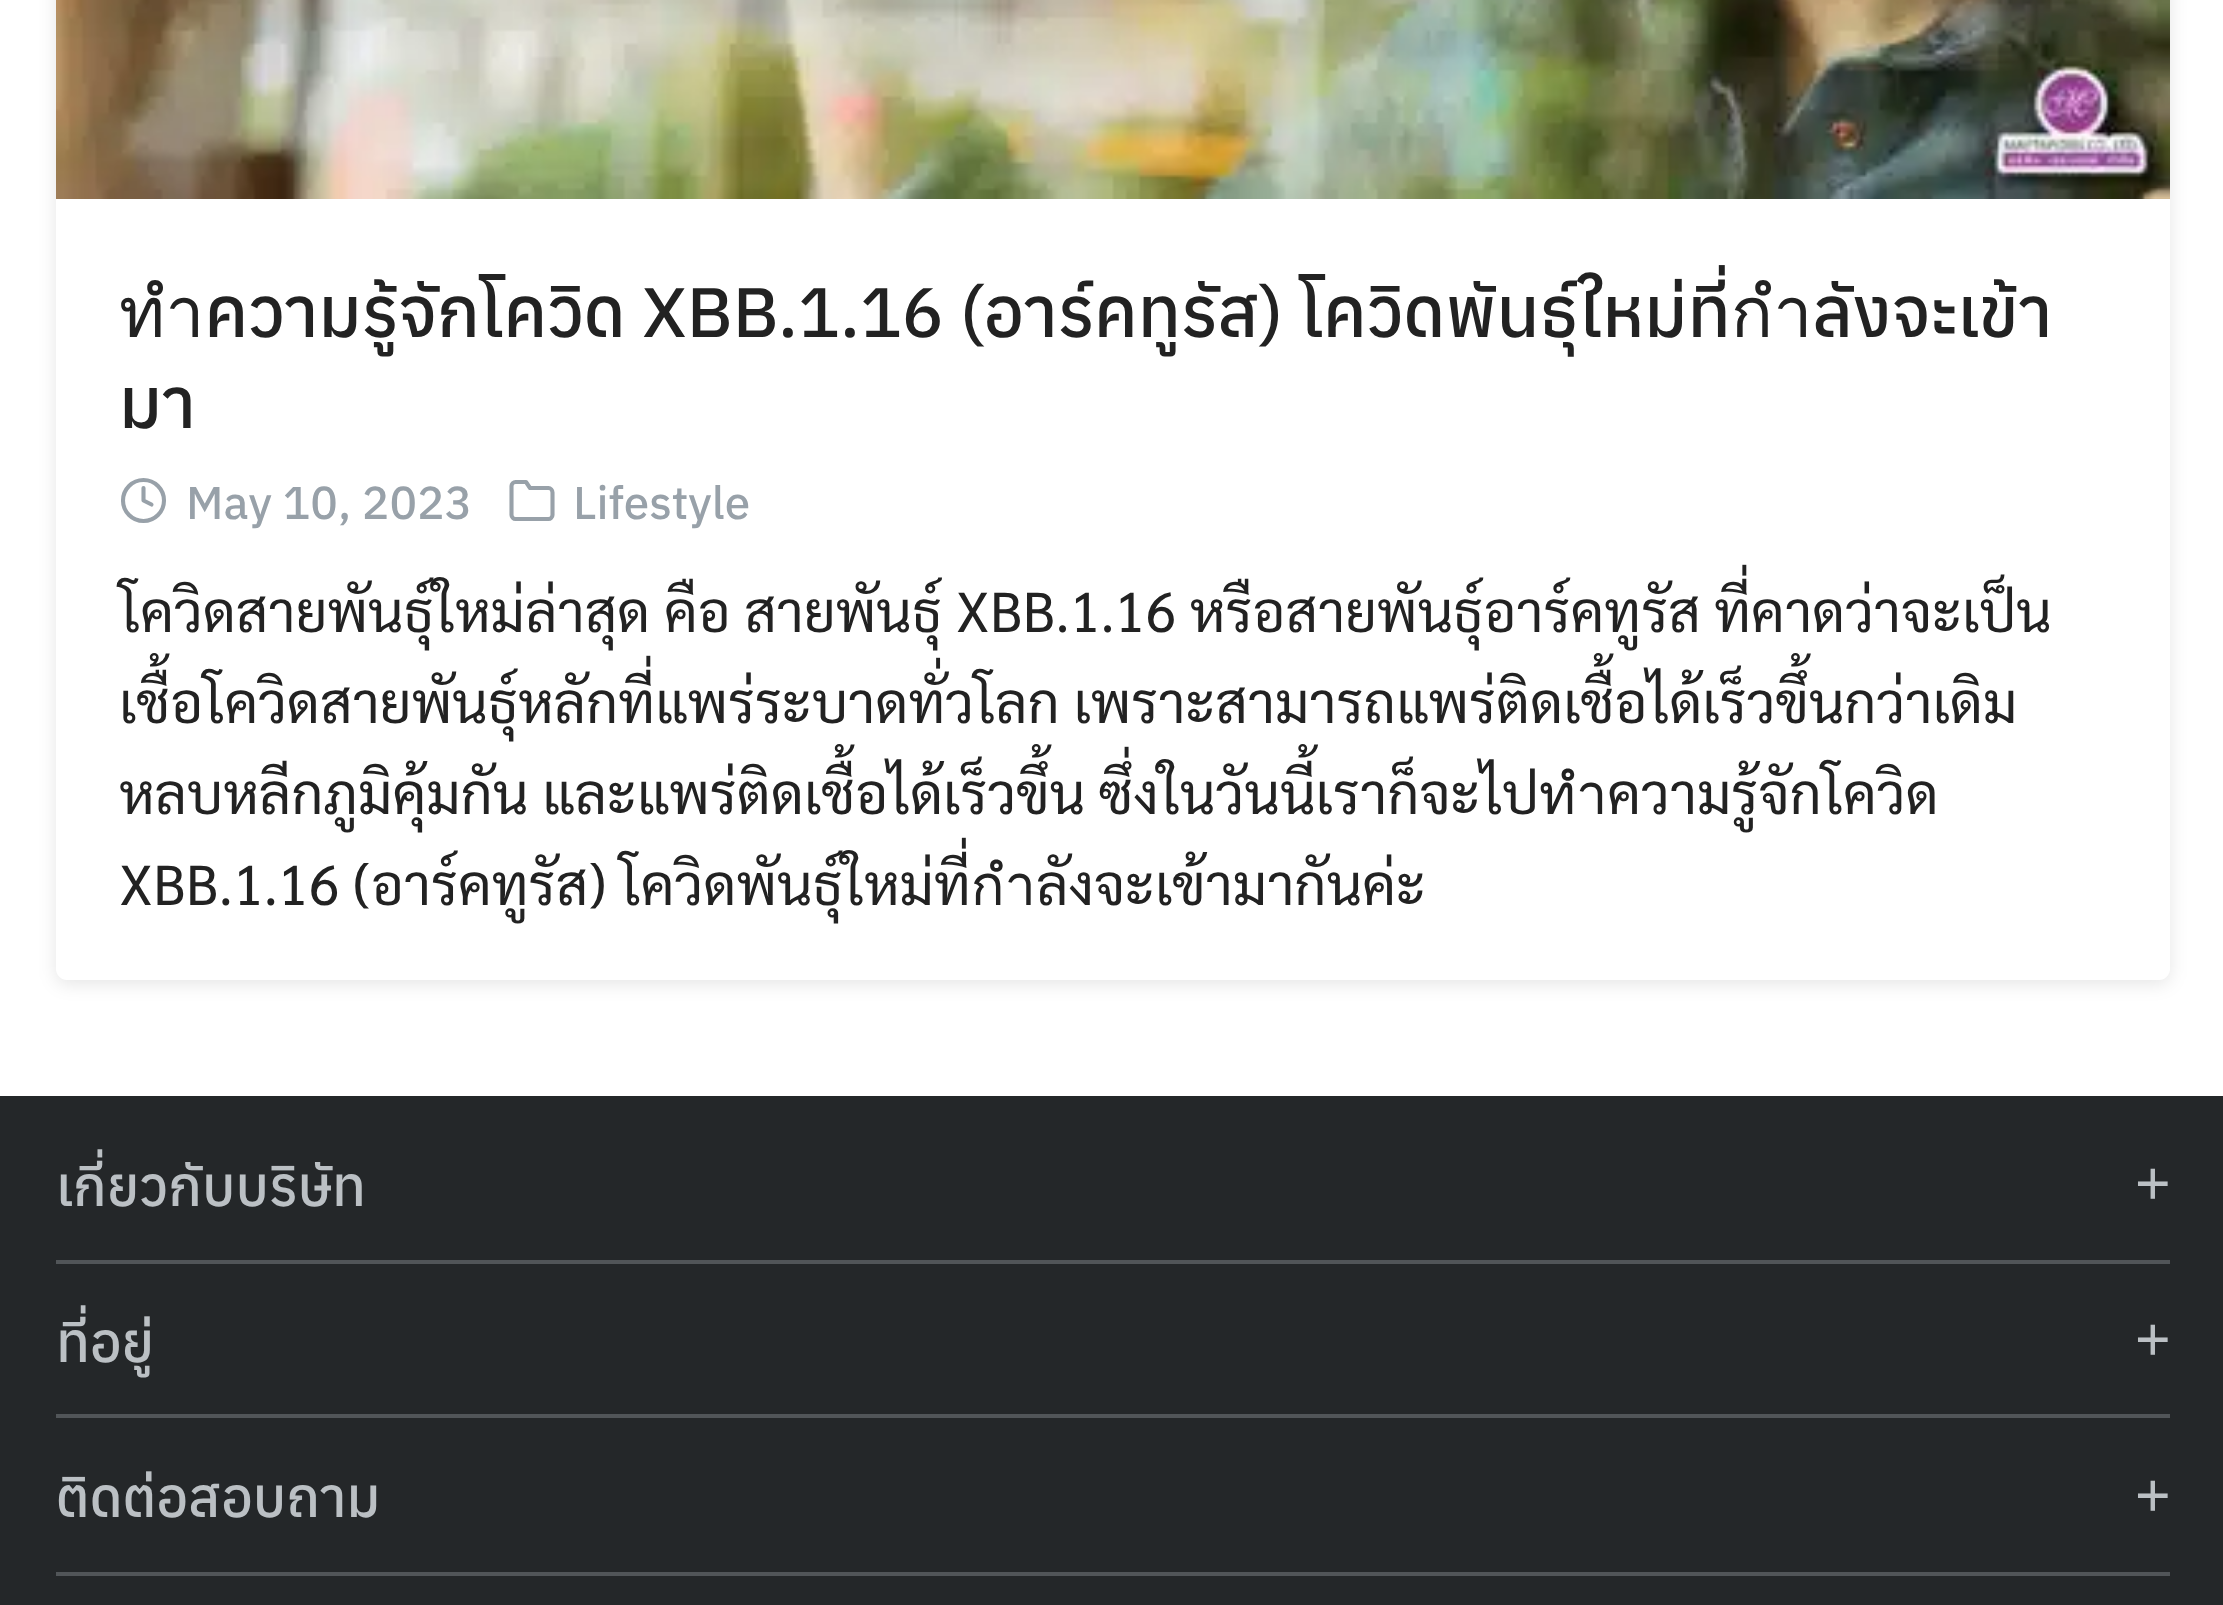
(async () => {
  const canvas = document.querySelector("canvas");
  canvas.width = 2223;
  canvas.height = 1605;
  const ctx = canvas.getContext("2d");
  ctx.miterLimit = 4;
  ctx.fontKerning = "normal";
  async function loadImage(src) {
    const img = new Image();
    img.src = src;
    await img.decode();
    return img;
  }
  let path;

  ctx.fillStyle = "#ffffff";
  ctx.fillRect(0, 0, 2223, 1605);
  ctx.fillStyle = "rgba(0, 0, 0, 0.1)";
  ctx.filter = "blur(9px)";
  ctx.beginPath();
  ctx.roundRect(56, -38, 2114, 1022, 11);
  ctx.fill();
  ctx.filter = "none";
  ctx.fillStyle = "#ffffff";
  ctx.beginPath();
  ctx.roundRect(56, -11, 2114, 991, 11);
  ctx.fill();
  ctx.drawImage(await loadImage("img/1.png"), 56, 0, 2114, 199);
  ctx.beginPath();
  ctx.arc(143.5, 500.5, 20.5, 0, Math.PI * 2);
  ctx.strokeStyle = "#98a1a9";
  ctx.lineWidth = 4.1;
  ctx.stroke();
  path = new Path2D("M143.5 488V500.5L151.5 504.5");
  ctx.lineCap = "round";
  ctx.lineJoin = "round";
  ctx.stroke(path);
  path = new Path2D("M552.5 515C552.5 517 550.5 519 548.5 519H515.5C513.5 519 511.5 517 511.5 515V486C511.5 484 513.5 482 515.5 482H526L530 488H548.5C550.5 488 552.5 490 552.5 492.5Z");
  ctx.stroke(path);
  for (const [x, y, w, h, color] of [
    [0, 1096, 2223, 509, "#242729"],
    [56, 1260, 2114, 4, "#515558"],
    [56, 1414, 2114, 4, "#515558"],
    [56, 1572, 2114, 4, "#515558"],
  ]) {
    ctx.fillStyle = color;
    ctx.fillRect(x, y, w, h);
  }
  ctx.font = "500 70px Anuphan";
  ctx.fillStyle = "#222222";
  ctx.fillText("ทำความรู้จักโควิด XBB.1.16 (อาร์คทูรัส) โควิดพันธุ์ใหม่ที่กำลังจะเข้า", 119, 337);
  ctx.fillText("มา", 119, 428);
  ctx.font = "500 46px Anuphan";
  ctx.fillStyle = "#98a1a9";
  ctx.fillText("May 10, 2023", 186, 519);
  ctx.fillText("Lifestyle", 573, 519);
  ctx.font = "56px Sarabun";
  ctx.fillStyle = "#222222";
  for (const [text, x, y] of [
    ["โควิดสายพันธุ์ใหม่ล่าสุด คือ สายพันธุ์ XBB.1.16 หรือสายพันธุ์อาร์คทูรัส ที่คาดว่าจะเป็น", 119, 632],
    ["เชื้อโควิดสายพันธุ์หลักที่แพร่ระบาดทั่วโลก เพราะสามารถแพร่ติดเชื้อได้เร็วขึ้นกว่าเดิม", 119, 723],
    ["หลบหลีกภูมิคุ้มกัน และแพร่ติดเชื้อได้เร็วขึ้น ซึ่งในวันนี้เราก็จะไปทำความรู้จักโควิด", 119, 814],
    ["XBB.1.16 (อาร์คทูรัส) โควิดพันธุ์ใหม่ที่กำลังจะเข้ามากันค่ะ", 119, 905],
  ]) {
    ctx.fillText(text, x, y);
  }
  ctx.font = "500 55px Anuphan";
  ctx.fillStyle = "#bbc0c4";
  ctx.fillText("เกี่ยวกับบริษัท", 56, 1206);
  ctx.font = "61px Liberation Sans";
  ctx.fillText("+", 2135, 1204);
  ctx.font = "500 55px Anuphan";
  ctx.fillText("ที่อยู่", 56, 1362);
  ctx.font = "61px Liberation Sans";
  ctx.fillText("+", 2135, 1360);
  ctx.font = "500 55px Anuphan";
  ctx.fillText("ติดต่อสอบถาม", 56, 1517);
  ctx.font = "61px Liberation Sans";
  ctx.fillText("+", 2135, 1516);
})();
